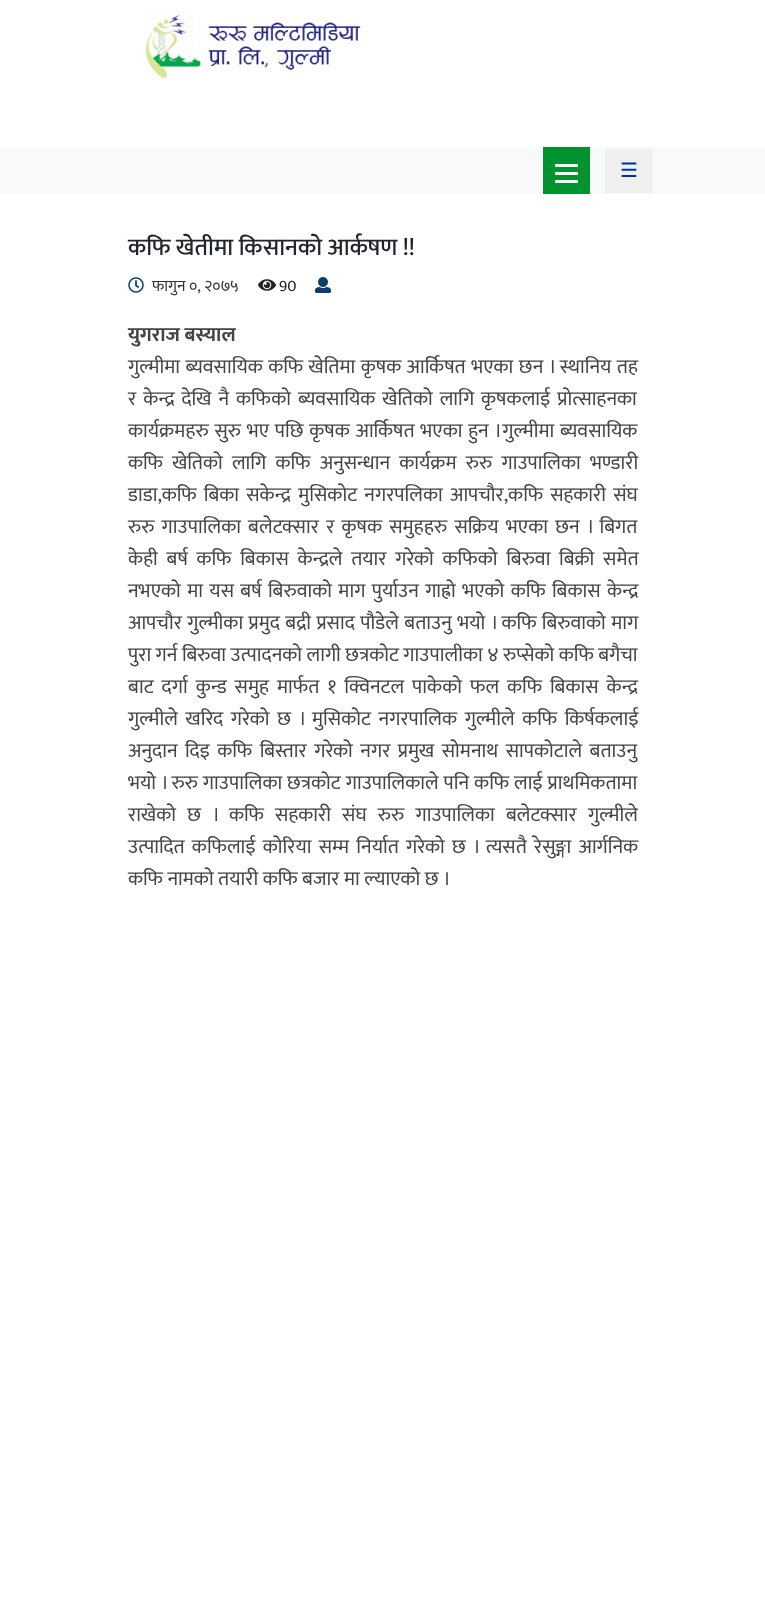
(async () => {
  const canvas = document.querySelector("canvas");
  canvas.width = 765;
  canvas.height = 1608;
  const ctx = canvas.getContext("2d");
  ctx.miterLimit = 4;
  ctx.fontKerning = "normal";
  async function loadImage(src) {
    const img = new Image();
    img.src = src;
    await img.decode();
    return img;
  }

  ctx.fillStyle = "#ffffff";
  ctx.fillRect(0, 0, 765, 1608);
  ctx.drawImage(await loadImage("img/1.png"), 145, 13, 216, 67);
  for (const [x, y, w, h, color] of [
    [0, 147, 765, 47, "#f8f9fa"],
    [543, 147, 47, 47, "#009330"],
    [555, 164, 23, 3, "#ffffff"],
    [555, 172, 23, 3, "#ffffff"],
    [555, 180, 23, 3, "#ffffff"],
    [605, 149, 48, 44, "#efefef"],
  ]) {
    ctx.fillStyle = color;
    ctx.fillRect(x, y, w, h);
  }
  ctx.drawImage(await loadImage("img/2.png"), 128, 277, 16, 16);
  ctx.drawImage(await loadImage("img/3.png"), 258, 279, 18, 12);
  ctx.drawImage(await loadImage("img/4.png"), 315, 277, 16, 16);
  ctx.font = "20px DejaVu Sans";
  ctx.fillStyle = "#013396";
  ctx.fillText("☰", 620, 177);
  ctx.font = "500 24px Mukta";
  ctx.fillStyle = "#212529";
  ctx.fillText("कफि खेतीमा किसानको आर्कषण !!", 128, 255);
  ctx.font = "16px Mukta";
  ctx.fillStyle = "#333333";
  ctx.fillText("फागुन ०, २०७५", 152, 291);
  ctx.fillStyle = "#212529";
  ctx.fillText("90", 279, 291);
  ctx.font = "bold 20px Mukta";
  ctx.fillStyle = "#444444";
  ctx.fillText("युगराज बस्याल", 128, 341);
  ctx.wordSpacing = "1px";
  ctx.font = "20px Mukta";
  ctx.fillText("गुल्मीमा ब्यवसायिक कफि खेतिमा कृषक आर्किषत भएका छन । स्थानिय तह", 128, 373);
  ctx.wordSpacing = "2.5px";
  ctx.fillText("र केन्द्र देखि नै कफिको ब्यवसायिक खेतिको लागि कृषकलाई प्रोत्साहनका", 128, 405);
  ctx.wordSpacing = "1.25px";
  ctx.fillText("कार्यक्रमहरु सुरु भए पछि कृषक आर्किषत भएका हुन ।गुल्मीमा ब्यवसायिक", 128, 437);
  ctx.wordSpacing = "4.75px";
  ctx.fillText("कफि खेतिको लागि कफि अनुसन्धान कार्यक्रम रुरु गाउपालिका भण्डारी", 128, 469);
  ctx.wordSpacing = "2.75px";
  ctx.fillText("डाडा,कफि बिका सकेन्द्र मुसिकोट नगरपलिका आपचौर,कफि सहकारी संघ", 128, 501);
  ctx.fillText("रुरु गाउपालिका बलेटक्सार र कृषक समुहहरु सक्रिय भएका छन । बिगत", 128, 533);
  ctx.wordSpacing = "4.25px";
  ctx.fillText("केही बर्ष कफि बिकास केन्द्रले तयार गरेको कफिको बिरुवा बिक्री समेत", 128, 565);
  ctx.wordSpacing = "1.9px";
  ctx.fillText("नभएको मा यस बर्ष बिरुवाको माग पुर्याउन गाह्रो भएको कफि बिकास केन्द्र", 128, 597);
  ctx.wordSpacing = "0.9px";
  ctx.fillText("आपचौर गुल्मीका प्रमुद बद्री प्रसाद पौडेले बताउनु भयो । कफि बिरुवाको माग", 128, 629);
  ctx.wordSpacing = "0px";
  ctx.fillText("पुरा गर्न बिरुवा उत्पादनको लागी छत्रकोट गाउपालीका ४ रुप्सेको कफि बगैचा", 128, 661);
  ctx.wordSpacing = "3.5px";
  ctx.fillText("बाट दर्गा कुन्ड समुह मार्फत १ क्विनटल पाकेको फल कफि बिकास केन्द्र", 128, 693);
  ctx.wordSpacing = "3.25px";
  ctx.fillText("गुल्मीले खरिद गरेको छ । मुसिकोट नगरपालिक गुल्मीले कफि किर्षकलाई", 128, 725);
  ctx.wordSpacing = "3px";
  ctx.fillText("अनुदान दिइ कफि बिस्तार गरेको नगर प्रमुख सोमनाथ सापकोटाले बताउनु", 128, 757);
  ctx.wordSpacing = "0.5px";
  ctx.fillText("भयो । रुरु गाउपालिका छत्रकोट गाउपालिकाले पनि कफि लाई प्राथमिकतामा", 128, 789);
  ctx.wordSpacing = "6.75px";
  ctx.fillText("राखेको छ । कफि सहकारी संघ रुरु गाउपालिका बलेटक्सार गुल्मीले", 128, 821);
  ctx.wordSpacing = "2.75px";
  ctx.fillText("उत्पादित कफिलाई कोरिया सम्म निर्यात गरेको छ । त्यसतै रेसुङ्गा आर्गनिक", 128, 853);
  ctx.wordSpacing = "0px";
  ctx.fillText("कफि नामको तयारी कफि बजार मा ल्याएको छ ।", 128, 885);
})();
